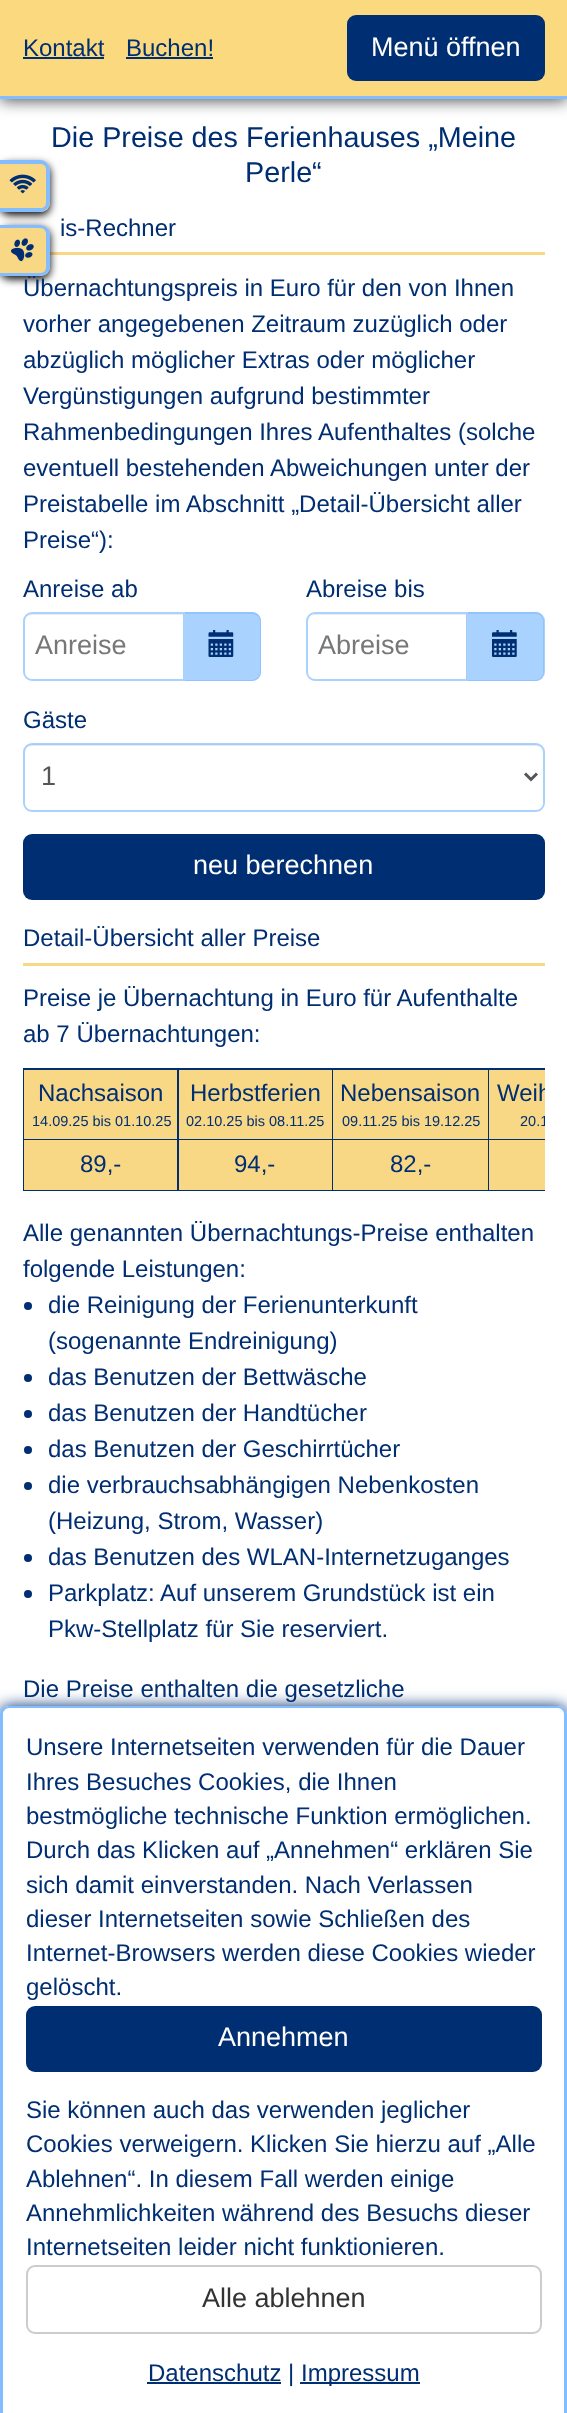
(async () => {
  const canvas = document.querySelector("canvas");
  canvas.width = 567;
  canvas.height = 2413;
  const ctx = canvas.getContext("2d");
  ctx.miterLimit = 4;
  ctx.fontKerning = "normal";
  async function loadImage(src) {
    const img = new Image();
    img.src = src;
    await img.decode();
    return img;
  }
  let path;

  ctx.fillStyle = "#ffffff";
  ctx.fillRect(0, 0, 567, 2413);
  ctx.fillStyle = "#555555";
  ctx.filter = "blur(7.5px)";
  ctx.beginPath();
  ctx.rect(0, 2, 567, 99);
  ctx.fill();
  ctx.filter = "none";
  for (const [x, y, w, h, color] of [
    [0, 0, 567, 96, "#fad97f"],
    [0, 96, 567, 3, "#84bdff"],
    [23, 57, 81, 2, "#002e72"],
    [126, 57, 87, 2, "#002e72"],
  ]) {
    ctx.fillStyle = color;
    ctx.fillRect(x, y, w, h);
  }
  ctx.beginPath();
  ctx.roundRect(347, 15, 198, 66, 9);
  ctx.fill();
  ctx.fillStyle = "#f9d885";
  ctx.fillRect(50, 252, 495, 3);
  ctx.fillStyle = "#aad2ff";
  ctx.beginPath();
  ctx.roundRect(185, 612, 76, 69, [0, 9, 9, 0]);
  ctx.fill();
  ctx.fillStyle = "rgba(134, 190, 255, 0.7)";
  path = new Path2D("M184 612H252C257 612 261 616 261 621V672C261 677 257 681 252 681H184ZM184 614H252C256 614 260 617 260 621V672C260 676 256 680 252 680H184Z");
  ctx.fill(path, "evenodd");
  ctx.fillStyle = "#ffffff";
  ctx.beginPath();
  ctx.roundRect(23, 612, 162, 69, [9, 0, 0, 9]);
  ctx.fill();
  ctx.fillStyle = "#ececec";
  path = new Path2D("M32 615H183V614H32C28 614 24 618 24 622C24 618 27 615 32 615Z");
  ctx.fill(path);
  ctx.beginPath();
  ctx.roundRect(24, 613, 160, 67, [8, 0, 0, 8]);
  ctx.strokeStyle = "rgba(134, 190, 255, 0.7)";
  ctx.lineWidth = 2;
  ctx.stroke();
  ctx.drawImage(await loadImage("img/1.png"), 208, 630, 26, 27);
  path = new Path2D("M315 615H466V680H467V614H316C312 614 308 618 308 622C308 618 311 615 315 615Z");
  ctx.fill(path);
  ctx.beginPath();
  ctx.roundRect(307, 613, 160, 67, [8, 0, 0, 8]);
  ctx.stroke();
  ctx.fillStyle = "#aad2ff";
  ctx.beginPath();
  ctx.roundRect(468, 612, 77, 69, [0, 9, 9, 0]);
  ctx.fill();
  ctx.fillStyle = "rgba(134, 190, 255, 0.7)";
  path = new Path2D("M468 612H536C540 612 544 616 544 621V672C544 677 540 681 536 681H468ZM468 614H536C540 614 543 617 543 621V672C543 676 540 680 536 680H468Z");
  ctx.fill(path, "evenodd");
  ctx.drawImage(await loadImage("img/2.png"), 492, 630, 25, 27);
  ctx.fillStyle = "#ececec";
  path = new Path2D("M32 746H536C540 746 543 749 543 753V752C543 748 539 744 535 744H32C28 744 24 748 24 752V753C24 749 27 746 32 746Z");
  ctx.fill(path);
  ctx.beginPath();
  ctx.roundRect(24, 744, 520, 67, 8);
  ctx.stroke();
  path = new Path2D("M525 773.5L531 779.5L537 773.5");
  ctx.strokeStyle = "#555555";
  ctx.lineWidth = 3;
  ctx.stroke(path);
  ctx.fillStyle = "#002e72";
  ctx.beginPath();
  ctx.roundRect(23, 834, 522, 66, 9);
  ctx.fill();
  for (const [x, y, w, h, color] of [
    [23, 963, 522, 3, "#f9d885"],
    [23, 1068, 522, 123, "#002e72"],
    [24, 1070, 153, 69, "#f9d885"],
    [179, 1070, 153, 69, "#f9d885"],
    [333, 1070, 155, 69, "#f9d885"],
    [489, 1070, 56, 69, "#f9d885"],
    [24, 1140, 153, 50, "#f9d885"],
    [179, 1140, 153, 50, "#f9d885"],
    [333, 1140, 155, 50, "#f9d885"],
    [489, 1140, 56, 50, "#f9d885"],
  ]) {
    ctx.fillStyle = color;
    ctx.fillRect(x, y, w, h);
  }
  ctx.fillStyle = "#002e72";
  ctx.beginPath();
  ctx.arc(28, 1306, 4, 0, Math.PI * 2);
  ctx.fill();
  ctx.beginPath();
  ctx.arc(28, 1378, 4, 0, Math.PI * 2);
  ctx.fill();
  ctx.beginPath();
  ctx.arc(28, 1414, 4, 0, Math.PI * 2);
  ctx.fill();
  ctx.beginPath();
  ctx.arc(28, 1450, 4, 0, Math.PI * 2);
  ctx.fill();
  ctx.beginPath();
  ctx.arc(28, 1486, 4, 0, Math.PI * 2);
  ctx.fill();
  ctx.beginPath();
  ctx.arc(28, 1558, 4, 0, Math.PI * 2);
  ctx.fill();
  ctx.beginPath();
  ctx.arc(28, 1594, 4, 0, Math.PI * 2);
  ctx.fill();
  ctx.fillStyle = "#000000";
  ctx.filter = "blur(4px)";
  ctx.beginPath();
  ctx.roundRect(0, 164, 50, 51, 9);
  ctx.fill();
  ctx.filter = "none";
  ctx.fillStyle = "#f9d885";
  ctx.beginPath();
  ctx.roundRect(0, 161, 50, 51, [0, 9, 9, 0]);
  ctx.fill();
  ctx.fillStyle = "#84bdff";
  path = new Path2D("M0 160H40C45 160 50 165 50 170V202C50 207 45 212 40 212H0ZM0 164H40C44 164 46 166 46 170V202C46 206 44 208 40 208H0Z");
  ctx.fill(path, "evenodd");
  ctx.drawImage(await loadImage("img/3.png"), 9, 174, 27, 20);
  ctx.fillStyle = "#000000";
  ctx.filter = "blur(4px)";
  ctx.beginPath();
  ctx.roundRect(0, 228, 50, 51, 9);
  ctx.fill();
  ctx.filter = "none";
  ctx.fillStyle = "#002e72";
  ctx.filter = "blur(7.5px)";
  ctx.beginPath();
  ctx.roundRect(0, 1706, 567, 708, 9);
  ctx.fill();
  ctx.filter = "none";
  ctx.fillStyle = "#ffffff";
  path = new Path2D("M9 1706H558C563 1706 567 1710 567 1715V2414H0V1715C0 1710 4 1706 9 1706Z");
  ctx.fill(path);
  ctx.fillStyle = "#84bdff";
  path = new Path2D("M9 1706H558C563 1706 567 1710 567 1714V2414H0V1714C0 1710 4 1706 9 1706ZM9 1708H558C561 1708 564 1711 564 1714V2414H3V1714C3 1711 6 1708 9 1708Z");
  ctx.fill(path, "evenodd");
  ctx.fillStyle = "#002e72";
  ctx.beginPath();
  ctx.roundRect(26, 2006, 516, 66, 9);
  ctx.fill();
  ctx.beginPath();
  ctx.roundRect(27, 2266, 514, 67, 8);
  ctx.strokeStyle = "#cccccc";
  ctx.lineWidth = 2;
  ctx.stroke();
  ctx.fillRect(147, 2382, 134, 2);
  ctx.fillRect(300, 2382, 120, 2);
  ctx.font = "24px Liberation Sans";
  ctx.fillText("Kontakt", 23, 56);
  ctx.fillText("Buchen!", 126, 56);
  ctx.font = "27px Liberation Sans";
  ctx.fillStyle = "#ffffff";
  ctx.fillText("Menü öffnen", 371, 56);
  ctx.font = "28.75px Liberation Sans";
  ctx.fillStyle = "#002e72";
  ctx.fillText("Die Preise des Ferienhauses „Meine", 51, 147);
  ctx.fillText("Perle“", 245, 182);
  ctx.font = "24px Liberation Sans";
  for (const [text, x, y] of [
    ["is-Rechner", 60, 236],
    ["Übernachtungspreis in Euro für den von Ihnen", 23, 296],
    ["vorher angegebenen Zeitraum zuzüglich oder", 23, 332],
    ["abzüglich möglicher Extras oder möglicher", 23, 368],
    ["Vergünstigungen aufgrund bestimmter", 23, 404],
    ["Rahmenbedingungen Ihres Aufenthaltes (solche", 23, 440],
    ["eventuell bestehenden Abweichungen unter der", 23, 476],
    ["Preistabelle im Abschnitt „Detail-Übersicht aller", 23, 512],
    ["Preise“):", 23, 548],
    ["Anreise ab", 23, 597],
  ]) {
    ctx.fillText(text, x, y);
  }
  ctx.font = "27px Liberation Sans";
  ctx.fillStyle = "#777777";
  ctx.fillText("Anreise", 35, 654);
  ctx.font = "24px Liberation Sans";
  ctx.fillStyle = "#002e72";
  ctx.fillText("Abreise bis", 306, 597);
  ctx.font = "27px Liberation Sans";
  ctx.fillStyle = "#777777";
  ctx.fillText("Abreise", 318, 654);
  ctx.font = "24px Liberation Sans";
  ctx.fillStyle = "#002e72";
  ctx.fillText("Gäste", 23, 728);
  ctx.font = "27px Liberation Sans";
  ctx.fillStyle = "#555555";
  ctx.fillText("1", 41, 785);
  ctx.fillStyle = "#ffffff";
  ctx.fillText("neu berechnen", 193, 874);
  ctx.font = "24px Liberation Sans";
  ctx.fillStyle = "#002e72";
  for (const [text, x, y] of [
    ["Detail-Übersicht aller Preise", 23, 946],
    ["Preise je Übernachtung in Euro für Aufenthalte", 23, 1006],
    ["ab 7 Übernachtungen:", 23, 1042],
    ["Nachsaison", 38, 1101],
  ]) {
    ctx.fillText(text, x, y);
  }
  ctx.font = "14.5px Liberation Sans";
  ctx.fillText("14.09.25 bis 01.10.25", 32, 1126);
  ctx.font = "24px Liberation Sans";
  ctx.fillText("Herbstferien", 190, 1101);
  ctx.font = "14.5px Liberation Sans";
  ctx.fillText("02.10.25 bis 08.11.25", 186, 1126);
  ctx.font = "24px Liberation Sans";
  ctx.fillText("Nebensaison", 340, 1101);
  ctx.font = "14.5px Liberation Sans";
  ctx.fillText("09.11.25 bis 19.12.25", 342, 1126);
  ctx.save();
  ctx.beginPath();
  ctx.rect(23, 1068, 522, 123);
  ctx.clip();
  ctx.font = "24px Liberation Sans";
  ctx.fillText("Weih", 497, 1101);
  ctx.font = "14.5px Liberation Sans";
  ctx.fillText("20.1", 520, 1126);
  ctx.restore();
  ctx.font = "24px Liberation Sans";
  for (const [text, x, y] of [
    ["89,-", 80, 1172],
    ["94,-", 234, 1172],
    ["82,-", 390, 1172],
    ["Alle genannten Übernachtungs-Preise enthalten", 23, 1241],
    ["folgende Leistungen:", 23, 1277],
    ["die Reinigung der Ferienunterkunft", 48, 1313],
    ["(sogenannte Endreinigung)", 48, 1349],
    ["das Benutzen der Bettwäsche", 48, 1385],
    ["das Benutzen der Handtücher", 48, 1421],
    ["das Benutzen der Geschirrtücher", 48, 1457],
    ["die verbrauchsabhängigen Nebenkosten", 48, 1493],
    ["(Heizung, Strom, Wasser)", 48, 1529],
    ["das Benutzen des WLAN-Internetzuganges", 48, 1565],
    ["Parkplatz: Auf unserem Grundstück ist ein", 48, 1601],
    ["Pkw-Stellplatz für Sie reserviert.", 48, 1637],
    ["Die Preise enthalten die gesetzliche", 23, 1697],
  ]) {
    ctx.fillText(text, x, y);
  }
  ctx.fillStyle = "#f9d885";
  ctx.beginPath();
  ctx.roundRect(0, 225, 50, 51, [0, 9, 9, 0]);
  ctx.fill();
  ctx.fillStyle = "#84bdff";
  path = new Path2D("M0 225H40C45 225 50 229 50 234V267C50 272 45 276 40 276H0ZM0 228H40C44 228 46 231 46 234V267C46 270 44 273 40 273H0Z");
  ctx.fill(path, "evenodd");
  ctx.drawImage(await loadImage("img/4.png"), 11, 238, 23, 24);
  ctx.fillStyle = "#002e72";
  for (const [text, x, y] of [
    ["Unsere Internetseiten verwenden für die Dauer", 26, 1755],
    ["Ihres Besuches Cookies, die Ihnen", 26, 1790],
    ["bestmögliche technische Funktion ermöglichen.", 26, 1824],
    ["Durch das Klicken auf „Annehmen“ erklären Sie", 26, 1858],
    ["sich damit einverstanden. Nach Verlassen", 26, 1893],
    ["dieser Internetseiten sowie Schließen des", 26, 1927],
    ["Internet-Browsers werden diese Cookies wieder", 26, 1961],
    ["gelöscht.", 26, 1995],
  ]) {
    ctx.fillText(text, x, y);
  }
  ctx.font = "27px Liberation Sans";
  ctx.fillStyle = "#ffffff";
  ctx.fillText("Annehmen", 218, 2046);
  ctx.font = "24px Liberation Sans";
  ctx.fillStyle = "#002e72";
  for (const [text, x, y] of [
    ["Sie können auch das verwenden jeglicher", 26, 2118],
    ["Cookies verweigern. Klicken Sie hierzu auf „Alle", 26, 2152],
    ["Ablehnen“. In diesem Fall werden einige", 26, 2187],
    ["Annehmlichkeiten während des Besuchs dieser", 26, 2221],
    ["Internetseiten leider nicht funktionieren.", 26, 2255],
  ]) {
    ctx.fillText(text, x, y);
  }
  ctx.font = "27px Liberation Sans";
  ctx.fillStyle = "#333333";
  ctx.fillText("Alle ablehnen", 202, 2307);
  ctx.font = "24px Liberation Sans";
  ctx.fillStyle = "#002e72";
  ctx.fillText("Datenschutz |", 148, 2381);
  ctx.fillText("Impressum", 301, 2381);
})();
